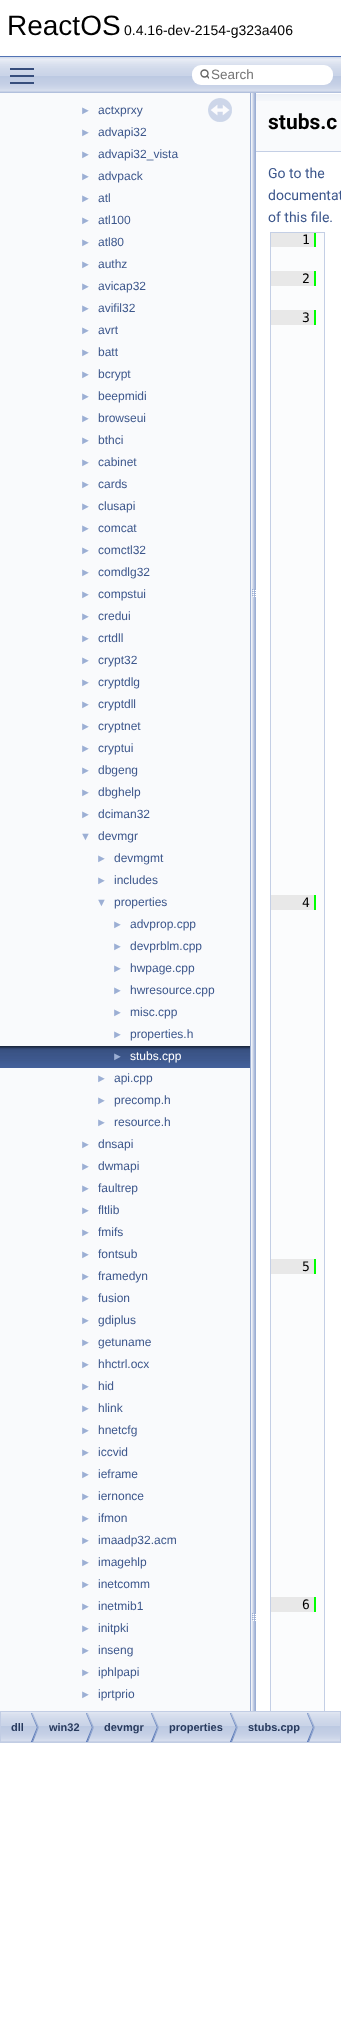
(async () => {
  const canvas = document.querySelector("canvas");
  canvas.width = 341;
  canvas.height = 2031;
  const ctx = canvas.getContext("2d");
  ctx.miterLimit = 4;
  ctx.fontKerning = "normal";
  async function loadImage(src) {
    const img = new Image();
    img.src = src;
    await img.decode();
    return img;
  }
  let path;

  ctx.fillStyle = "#ffffff";
  ctx.fillRect(0, 0, 341, 2031);
  ctx.fillStyle = "#5373b4";
  ctx.fillRect(0, 56, 341, 1);
  ctx.drawImage(await loadImage("img/1.png"), 0, 57, 341, 36);
  for (const [x, y, w, h, color] of [
    [10, 75, 24, 2, "#364d7c"],
    [10, 68, 24, 2, "#364d7c"],
    [10, 82, 24, 2, "#364d7c"],
  ]) {
    ctx.fillStyle = color;
    ctx.fillRect(x, y, w, h);
  }
  ctx.fillStyle = "#ffffff";
  ctx.beginPath();
  ctx.roundRect(192, 65, 141, 20, 9);
  ctx.fill();
  ctx.beginPath();
  ctx.arc(204.5, 73.5, 3.5, 0, Math.PI * 2);
  ctx.strokeStyle = "#656565";
  ctx.lineWidth = 1.4;
  ctx.stroke();
  ctx.save();
  ctx.beginPath();
  ctx.rect(199, 65, 10, 19);
  ctx.clip();
  path = new Path2D("M207 76L210 79");
  ctx.lineCap = "round";
  ctx.stroke(path);
  ctx.restore();
  ctx.fillStyle = "#f9fafc";
  ctx.fillRect(0, 93, 250, 1618);
  ctx.drawImage(await loadImage("img/2.png"), 0, 1046, 250, 22);
  ctx.drawImage(await loadImage("img/3.png"), 208, 98, 24, 24);
  ctx.drawImage(await loadImage("img/4.png"), 250, 93, 6, 1618);
  ctx.fillRect(256, 101, 85, 50);
  ctx.drawImage(await loadImage("img/5.png"), 256, 93, 85, 8);
  ctx.fillStyle = "#c4cfe5";
  ctx.fillRect(256, 151, 85, 1);
  ctx.fillStyle = "#fbfcfd";
  ctx.fillRect(271, 233, 53, 1478);
  ctx.save();
  ctx.beginPath();
  ctx.rect(256, 93, 85, 1618);
  ctx.clip();
  ctx.strokeStyle = "#c4cfe5";
  ctx.lineWidth = 1;
  ctx.strokeRect(270.5, 232.5, 54, 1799);
  ctx.restore();
  for (const [x, y, w, h, color] of [
    [271, 233, 43, 14, "#e8e8e8"],
    [314, 233, 2, 14, "#00ff00"],
    [271, 271, 43, 15, "#e8e8e8"],
    [314, 271, 2, 15, "#00ff00"],
    [271, 310, 43, 15, "#e8e8e8"],
    [314, 310, 2, 15, "#00ff00"],
    [271, 895, 43, 15, "#e8e8e8"],
    [314, 895, 2, 15, "#00ff00"],
    [271, 1259, 43, 15, "#e8e8e8"],
    [314, 1259, 2, 15, "#00ff00"],
    [271, 1597, 43, 15, "#e8e8e8"],
    [314, 1597, 2, 15, "#00ff00"],
  ]) {
    ctx.fillStyle = color;
    ctx.fillRect(x, y, w, h);
  }
  ctx.drawImage(await loadImage("img/6.png"), 1, 1712, 339, 30);
  ctx.strokeStyle = "#c2cde4";
  ctx.lineWidth = 1;
  ctx.strokeRect(0.5, 1711.5, 340, 31);
  ctx.drawImage(await loadImage("img/7.png"), 31, 1713, 8, 29);
  ctx.drawImage(await loadImage("img/7.png"), 86, 1713, 8, 29);
  ctx.drawImage(await loadImage("img/7.png"), 151, 1713, 8, 29);
  ctx.drawImage(await loadImage("img/7.png"), 230, 1713, 8, 29);
  ctx.drawImage(await loadImage("img/7.png"), 307, 1713, 8, 29);
  ctx.font = "28px Liberation Sans";
  ctx.fillStyle = "#000000";
  ctx.fillText("ReactOS", 7, 35);
  ctx.font = "14px Liberation Sans";
  ctx.fillText("0.4.16-dev-2154-g323a406", 124, 35);
  ctx.font = "13.5px Liberation Sans";
  ctx.fillStyle = "#757575";
  ctx.fillText("Search", 211, 79);
  ctx.font = "11px Liberation Sans";
  ctx.fillStyle = "#9cafd4";
  ctx.fillText("►", 80, 114);
  ctx.font = "12px Liberation Sans";
  ctx.fillStyle = "#3d578c";
  ctx.fillText("actxprxy", 98, 114);
  ctx.font = "11px Liberation Sans";
  ctx.fillStyle = "#9cafd4";
  ctx.fillText("►", 80, 136);
  ctx.font = "12px Liberation Sans";
  ctx.fillStyle = "#3d578c";
  ctx.fillText("advapi32", 98, 136);
  ctx.font = "11px Liberation Sans";
  ctx.fillStyle = "#9cafd4";
  ctx.fillText("►", 80, 158);
  ctx.font = "12px Liberation Sans";
  ctx.fillStyle = "#3d578c";
  ctx.fillText("advapi32_vista", 98, 158);
  ctx.font = "11px Liberation Sans";
  ctx.fillStyle = "#9cafd4";
  ctx.fillText("►", 80, 180);
  ctx.font = "12px Liberation Sans";
  ctx.fillStyle = "#3d578c";
  ctx.fillText("advpack", 98, 180);
  ctx.font = "11px Liberation Sans";
  ctx.fillStyle = "#9cafd4";
  ctx.fillText("►", 80, 202);
  ctx.font = "12px Liberation Sans";
  ctx.fillStyle = "#3d578c";
  ctx.fillText("atl", 98, 202);
  ctx.font = "11px Liberation Sans";
  ctx.fillStyle = "#9cafd4";
  ctx.fillText("►", 80, 224);
  ctx.font = "12px Liberation Sans";
  ctx.fillStyle = "#3d578c";
  ctx.fillText("atl100", 98, 224);
  ctx.font = "11px Liberation Sans";
  ctx.fillStyle = "#9cafd4";
  ctx.fillText("►", 80, 246);
  ctx.font = "12px Liberation Sans";
  ctx.fillStyle = "#3d578c";
  ctx.fillText("atl80", 98, 246);
  ctx.font = "11px Liberation Sans";
  ctx.fillStyle = "#9cafd4";
  ctx.fillText("►", 80, 268);
  ctx.font = "12px Liberation Sans";
  ctx.fillStyle = "#3d578c";
  ctx.fillText("authz", 98, 268);
  ctx.font = "11px Liberation Sans";
  ctx.fillStyle = "#9cafd4";
  ctx.fillText("►", 80, 290);
  ctx.font = "12px Liberation Sans";
  ctx.fillStyle = "#3d578c";
  ctx.fillText("avicap32", 98, 290);
  ctx.font = "11px Liberation Sans";
  ctx.fillStyle = "#9cafd4";
  ctx.fillText("►", 80, 312);
  ctx.font = "12px Liberation Sans";
  ctx.fillStyle = "#3d578c";
  ctx.fillText("avifil32", 98, 312);
  ctx.font = "11px Liberation Sans";
  ctx.fillStyle = "#9cafd4";
  ctx.fillText("►", 80, 334);
  ctx.font = "12px Liberation Sans";
  ctx.fillStyle = "#3d578c";
  ctx.fillText("avrt", 98, 334);
  ctx.font = "11px Liberation Sans";
  ctx.fillStyle = "#9cafd4";
  ctx.fillText("►", 80, 356);
  ctx.font = "12px Liberation Sans";
  ctx.fillStyle = "#3d578c";
  ctx.fillText("batt", 98, 356);
  ctx.font = "11px Liberation Sans";
  ctx.fillStyle = "#9cafd4";
  ctx.fillText("►", 80, 378);
  ctx.font = "12px Liberation Sans";
  ctx.fillStyle = "#3d578c";
  ctx.fillText("bcrypt", 98, 378);
  ctx.font = "11px Liberation Sans";
  ctx.fillStyle = "#9cafd4";
  ctx.fillText("►", 80, 400);
  ctx.font = "12px Liberation Sans";
  ctx.fillStyle = "#3d578c";
  ctx.fillText("beepmidi", 98, 400);
  ctx.font = "11px Liberation Sans";
  ctx.fillStyle = "#9cafd4";
  ctx.fillText("►", 80, 422);
  ctx.font = "12px Liberation Sans";
  ctx.fillStyle = "#3d578c";
  ctx.fillText("browseui", 98, 422);
  ctx.font = "11px Liberation Sans";
  ctx.fillStyle = "#9cafd4";
  ctx.fillText("►", 80, 444);
  ctx.font = "12px Liberation Sans";
  ctx.fillStyle = "#3d578c";
  ctx.fillText("bthci", 98, 444);
  ctx.font = "11px Liberation Sans";
  ctx.fillStyle = "#9cafd4";
  ctx.fillText("►", 80, 466);
  ctx.font = "12px Liberation Sans";
  ctx.fillStyle = "#3d578c";
  ctx.fillText("cabinet", 98, 466);
  ctx.font = "11px Liberation Sans";
  ctx.fillStyle = "#9cafd4";
  ctx.fillText("►", 80, 488);
  ctx.font = "12px Liberation Sans";
  ctx.fillStyle = "#3d578c";
  ctx.fillText("cards", 98, 488);
  ctx.font = "11px Liberation Sans";
  ctx.fillStyle = "#9cafd4";
  ctx.fillText("►", 80, 510);
  ctx.font = "12px Liberation Sans";
  ctx.fillStyle = "#3d578c";
  ctx.fillText("clusapi", 98, 510);
  ctx.font = "11px Liberation Sans";
  ctx.fillStyle = "#9cafd4";
  ctx.fillText("►", 80, 532);
  ctx.font = "12px Liberation Sans";
  ctx.fillStyle = "#3d578c";
  ctx.fillText("comcat", 98, 532);
  ctx.font = "11px Liberation Sans";
  ctx.fillStyle = "#9cafd4";
  ctx.fillText("►", 80, 554);
  ctx.font = "12px Liberation Sans";
  ctx.fillStyle = "#3d578c";
  ctx.fillText("comctl32", 98, 554);
  ctx.font = "11px Liberation Sans";
  ctx.fillStyle = "#9cafd4";
  ctx.fillText("►", 80, 576);
  ctx.font = "12px Liberation Sans";
  ctx.fillStyle = "#3d578c";
  ctx.fillText("comdlg32", 98, 576);
  ctx.font = "11px Liberation Sans";
  ctx.fillStyle = "#9cafd4";
  ctx.fillText("►", 80, 598);
  ctx.font = "12px Liberation Sans";
  ctx.fillStyle = "#3d578c";
  ctx.fillText("compstui", 98, 598);
  ctx.font = "11px Liberation Sans";
  ctx.fillStyle = "#9cafd4";
  ctx.fillText("►", 80, 620);
  ctx.font = "12px Liberation Sans";
  ctx.fillStyle = "#3d578c";
  ctx.fillText("credui", 98, 620);
  ctx.font = "11px Liberation Sans";
  ctx.fillStyle = "#9cafd4";
  ctx.fillText("►", 80, 642);
  ctx.font = "12px Liberation Sans";
  ctx.fillStyle = "#3d578c";
  ctx.fillText("crtdll", 98, 642);
  ctx.font = "11px Liberation Sans";
  ctx.fillStyle = "#9cafd4";
  ctx.fillText("►", 80, 664);
  ctx.font = "12px Liberation Sans";
  ctx.fillStyle = "#3d578c";
  ctx.fillText("crypt32", 98, 664);
  ctx.font = "11px Liberation Sans";
  ctx.fillStyle = "#9cafd4";
  ctx.fillText("►", 80, 686);
  ctx.font = "12px Liberation Sans";
  ctx.fillStyle = "#3d578c";
  ctx.fillText("cryptdlg", 98, 686);
  ctx.font = "11px Liberation Sans";
  ctx.fillStyle = "#9cafd4";
  ctx.fillText("►", 80, 708);
  ctx.font = "12px Liberation Sans";
  ctx.fillStyle = "#3d578c";
  ctx.fillText("cryptdll", 98, 708);
  ctx.font = "11px Liberation Sans";
  ctx.fillStyle = "#9cafd4";
  ctx.fillText("►", 80, 730);
  ctx.font = "12px Liberation Sans";
  ctx.fillStyle = "#3d578c";
  ctx.fillText("cryptnet", 98, 730);
  ctx.font = "11px Liberation Sans";
  ctx.fillStyle = "#9cafd4";
  ctx.fillText("►", 80, 752);
  ctx.font = "12px Liberation Sans";
  ctx.fillStyle = "#3d578c";
  ctx.fillText("cryptui", 98, 752);
  ctx.font = "11px Liberation Sans";
  ctx.fillStyle = "#9cafd4";
  ctx.fillText("►", 80, 774);
  ctx.font = "12px Liberation Sans";
  ctx.fillStyle = "#3d578c";
  ctx.fillText("dbgeng", 98, 774);
  ctx.font = "11px Liberation Sans";
  ctx.fillStyle = "#9cafd4";
  ctx.fillText("►", 80, 796);
  ctx.font = "12px Liberation Sans";
  ctx.fillStyle = "#3d578c";
  ctx.fillText("dbghelp", 98, 796);
  ctx.font = "11px Liberation Sans";
  ctx.fillStyle = "#9cafd4";
  ctx.fillText("►", 80, 818);
  ctx.font = "12px Liberation Sans";
  ctx.fillStyle = "#3d578c";
  ctx.fillText("dciman32", 98, 818);
  ctx.font = "11px Liberation Sans";
  ctx.fillStyle = "#9cafd4";
  ctx.fillText("▼", 80, 840);
  ctx.font = "12px Liberation Sans";
  ctx.fillStyle = "#3d578c";
  ctx.fillText("devmgr", 98, 840);
  ctx.font = "11px Liberation Sans";
  ctx.fillStyle = "#9cafd4";
  ctx.fillText("►", 96, 862);
  ctx.font = "12px Liberation Sans";
  ctx.fillStyle = "#3d578c";
  ctx.fillText("devmgmt", 114, 862);
  ctx.font = "11px Liberation Sans";
  ctx.fillStyle = "#9cafd4";
  ctx.fillText("►", 96, 884);
  ctx.font = "12px Liberation Sans";
  ctx.fillStyle = "#3d578c";
  ctx.fillText("includes", 114, 884);
  ctx.font = "11px Liberation Sans";
  ctx.fillStyle = "#9cafd4";
  ctx.fillText("▼", 96, 906);
  ctx.font = "12px Liberation Sans";
  ctx.fillStyle = "#3d578c";
  ctx.fillText("properties", 114, 906);
  ctx.font = "11px Liberation Sans";
  ctx.fillStyle = "#9cafd4";
  ctx.fillText("►", 112, 928);
  ctx.font = "12px Liberation Sans";
  ctx.fillStyle = "#3d578c";
  ctx.fillText("advprop.cpp", 130, 928);
  ctx.font = "11px Liberation Sans";
  ctx.fillStyle = "#9cafd4";
  ctx.fillText("►", 112, 950);
  ctx.font = "12px Liberation Sans";
  ctx.fillStyle = "#3d578c";
  ctx.fillText("devprblm.cpp", 130, 950);
  ctx.font = "11px Liberation Sans";
  ctx.fillStyle = "#9cafd4";
  ctx.fillText("►", 112, 972);
  ctx.font = "12px Liberation Sans";
  ctx.fillStyle = "#3d578c";
  ctx.fillText("hwpage.cpp", 130, 972);
  ctx.font = "11px Liberation Sans";
  ctx.fillStyle = "#9cafd4";
  ctx.fillText("►", 112, 994);
  ctx.font = "12px Liberation Sans";
  ctx.fillStyle = "#3d578c";
  ctx.fillText("hwresource.cpp", 130, 994);
  ctx.font = "11px Liberation Sans";
  ctx.fillStyle = "#9cafd4";
  ctx.fillText("►", 112, 1016);
  ctx.font = "12px Liberation Sans";
  ctx.fillStyle = "#3d578c";
  ctx.fillText("misc.cpp", 130, 1016);
  ctx.font = "11px Liberation Sans";
  ctx.fillStyle = "#9cafd4";
  ctx.fillText("►", 112, 1038);
  ctx.font = "12px Liberation Sans";
  ctx.fillStyle = "#3d578c";
  ctx.fillText("properties.h", 130, 1038);
  ctx.font = "11px Liberation Sans";
  ctx.fillStyle = "#9cafd4";
  ctx.fillText("►", 112, 1060);
  ctx.font = "12px Liberation Sans";
  ctx.fillStyle = "#ffffff";
  ctx.fillText("stubs.cpp", 130, 1060);
  ctx.font = "11px Liberation Sans";
  ctx.fillStyle = "#9cafd4";
  ctx.fillText("►", 96, 1082);
  ctx.font = "12px Liberation Sans";
  ctx.fillStyle = "#3d578c";
  ctx.fillText("api.cpp", 114, 1082);
  ctx.font = "11px Liberation Sans";
  ctx.fillStyle = "#9cafd4";
  ctx.fillText("►", 96, 1104);
  ctx.font = "12px Liberation Sans";
  ctx.fillStyle = "#3d578c";
  ctx.fillText("precomp.h", 114, 1104);
  ctx.font = "11px Liberation Sans";
  ctx.fillStyle = "#9cafd4";
  ctx.fillText("►", 96, 1126);
  ctx.font = "12px Liberation Sans";
  ctx.fillStyle = "#3d578c";
  ctx.fillText("resource.h", 114, 1126);
  ctx.font = "11px Liberation Sans";
  ctx.fillStyle = "#9cafd4";
  ctx.fillText("►", 80, 1148);
  ctx.font = "12px Liberation Sans";
  ctx.fillStyle = "#3d578c";
  ctx.fillText("dnsapi", 98, 1148);
  ctx.font = "11px Liberation Sans";
  ctx.fillStyle = "#9cafd4";
  ctx.fillText("►", 80, 1170);
  ctx.font = "12px Liberation Sans";
  ctx.fillStyle = "#3d578c";
  ctx.fillText("dwmapi", 98, 1170);
  ctx.font = "11px Liberation Sans";
  ctx.fillStyle = "#9cafd4";
  ctx.fillText("►", 80, 1192);
  ctx.font = "12px Liberation Sans";
  ctx.fillStyle = "#3d578c";
  ctx.fillText("faultrep", 98, 1192);
  ctx.font = "11px Liberation Sans";
  ctx.fillStyle = "#9cafd4";
  ctx.fillText("►", 80, 1214);
  ctx.font = "12px Liberation Sans";
  ctx.fillStyle = "#3d578c";
  ctx.fillText("fltlib", 98, 1214);
  ctx.font = "11px Liberation Sans";
  ctx.fillStyle = "#9cafd4";
  ctx.fillText("►", 80, 1236);
  ctx.font = "12px Liberation Sans";
  ctx.fillStyle = "#3d578c";
  ctx.fillText("fmifs", 98, 1236);
  ctx.font = "11px Liberation Sans";
  ctx.fillStyle = "#9cafd4";
  ctx.fillText("►", 80, 1258);
  ctx.font = "12px Liberation Sans";
  ctx.fillStyle = "#3d578c";
  ctx.fillText("fontsub", 98, 1258);
  ctx.font = "11px Liberation Sans";
  ctx.fillStyle = "#9cafd4";
  ctx.fillText("►", 80, 1280);
  ctx.font = "12px Liberation Sans";
  ctx.fillStyle = "#3d578c";
  ctx.fillText("framedyn", 98, 1280);
  ctx.font = "11px Liberation Sans";
  ctx.fillStyle = "#9cafd4";
  ctx.fillText("►", 80, 1302);
  ctx.font = "12px Liberation Sans";
  ctx.fillStyle = "#3d578c";
  ctx.fillText("fusion", 98, 1302);
  ctx.font = "11px Liberation Sans";
  ctx.fillStyle = "#9cafd4";
  ctx.fillText("►", 80, 1324);
  ctx.font = "12px Liberation Sans";
  ctx.fillStyle = "#3d578c";
  ctx.fillText("gdiplus", 98, 1324);
  ctx.font = "11px Liberation Sans";
  ctx.fillStyle = "#9cafd4";
  ctx.fillText("►", 80, 1346);
  ctx.font = "12px Liberation Sans";
  ctx.fillStyle = "#3d578c";
  ctx.fillText("getuname", 98, 1346);
  ctx.font = "11px Liberation Sans";
  ctx.fillStyle = "#9cafd4";
  ctx.fillText("►", 80, 1368);
  ctx.font = "12px Liberation Sans";
  ctx.fillStyle = "#3d578c";
  ctx.fillText("hhctrl.ocx", 98, 1368);
  ctx.font = "11px Liberation Sans";
  ctx.fillStyle = "#9cafd4";
  ctx.fillText("►", 80, 1390);
  ctx.font = "12px Liberation Sans";
  ctx.fillStyle = "#3d578c";
  ctx.fillText("hid", 98, 1390);
  ctx.font = "11px Liberation Sans";
  ctx.fillStyle = "#9cafd4";
  ctx.fillText("►", 80, 1412);
  ctx.font = "12px Liberation Sans";
  ctx.fillStyle = "#3d578c";
  ctx.fillText("hlink", 98, 1412);
  ctx.font = "11px Liberation Sans";
  ctx.fillStyle = "#9cafd4";
  ctx.fillText("►", 80, 1434);
  ctx.font = "12px Liberation Sans";
  ctx.fillStyle = "#3d578c";
  ctx.fillText("hnetcfg", 98, 1434);
  ctx.font = "11px Liberation Sans";
  ctx.fillStyle = "#9cafd4";
  ctx.fillText("►", 80, 1456);
  ctx.font = "12px Liberation Sans";
  ctx.fillStyle = "#3d578c";
  ctx.fillText("iccvid", 98, 1456);
  ctx.font = "11px Liberation Sans";
  ctx.fillStyle = "#9cafd4";
  ctx.fillText("►", 80, 1478);
  ctx.font = "12px Liberation Sans";
  ctx.fillStyle = "#3d578c";
  ctx.fillText("ieframe", 98, 1478);
  ctx.font = "11px Liberation Sans";
  ctx.fillStyle = "#9cafd4";
  ctx.fillText("►", 80, 1500);
  ctx.font = "12px Liberation Sans";
  ctx.fillStyle = "#3d578c";
  ctx.fillText("iernonce", 98, 1500);
  ctx.font = "11px Liberation Sans";
  ctx.fillStyle = "#9cafd4";
  ctx.fillText("►", 80, 1522);
  ctx.font = "12px Liberation Sans";
  ctx.fillStyle = "#3d578c";
  ctx.fillText("ifmon", 98, 1522);
  ctx.font = "11px Liberation Sans";
  ctx.fillStyle = "#9cafd4";
  ctx.fillText("►", 80, 1544);
  ctx.font = "12px Liberation Sans";
  ctx.fillStyle = "#3d578c";
  ctx.fillText("imaadp32.acm", 98, 1544);
  ctx.font = "11px Liberation Sans";
  ctx.fillStyle = "#9cafd4";
  ctx.fillText("►", 80, 1566);
  ctx.font = "12px Liberation Sans";
  ctx.fillStyle = "#3d578c";
  ctx.fillText("imagehlp", 98, 1566);
  ctx.font = "11px Liberation Sans";
  ctx.fillStyle = "#9cafd4";
  ctx.fillText("►", 80, 1588);
  ctx.font = "12px Liberation Sans";
  ctx.fillStyle = "#3d578c";
  ctx.fillText("inetcomm", 98, 1588);
  ctx.font = "11px Liberation Sans";
  ctx.fillStyle = "#9cafd4";
  ctx.fillText("►", 80, 1610);
  ctx.font = "12px Liberation Sans";
  ctx.fillStyle = "#3d578c";
  ctx.fillText("inetmib1", 98, 1610);
  ctx.font = "11px Liberation Sans";
  ctx.fillStyle = "#9cafd4";
  ctx.fillText("►", 80, 1632);
  ctx.font = "12px Liberation Sans";
  ctx.fillStyle = "#3d578c";
  ctx.fillText("initpki", 98, 1632);
  ctx.font = "11px Liberation Sans";
  ctx.fillStyle = "#9cafd4";
  ctx.fillText("►", 80, 1654);
  ctx.font = "12px Liberation Sans";
  ctx.fillStyle = "#3d578c";
  ctx.fillText("inseng", 98, 1654);
  ctx.font = "11px Liberation Sans";
  ctx.fillStyle = "#9cafd4";
  ctx.fillText("►", 80, 1676);
  ctx.font = "12px Liberation Sans";
  ctx.fillStyle = "#3d578c";
  ctx.fillText("iphlpapi", 98, 1676);
  ctx.font = "11px Liberation Sans";
  ctx.fillStyle = "#9cafd4";
  ctx.fillText("►", 80, 1698);
  ctx.font = "12px Liberation Sans";
  ctx.fillStyle = "#3d578c";
  ctx.fillText("iprtprio", 98, 1698);
  ctx.font = "bold 21px Roboto";
  ctx.fillStyle = "#000000";
  ctx.fillText("stubs.c", 268, 129);
  ctx.font = "14px Roboto";
  ctx.fillStyle = "#3d578c";
  for (const [text, x, y] of [
    ["Go to the", 268, 178],
    ["documentat", 268, 200],
    ["of this file.", 268, 222],
  ]) {
    ctx.fillText(text, x, y);
  }
  ctx.font = "13px DejaVu Sans Mono";
  ctx.fillStyle = "#000000";
  for (const [text, x, y] of [
    ["1", 302, 244],
    ["2", 302, 283],
    ["3", 302, 322],
    ["4", 302, 907],
    ["5", 302, 1271],
    ["6", 302, 1609],
  ]) {
    ctx.fillText(text, x, y);
  }
  ctx.font = "bold 11px Liberation Sans";
  ctx.fillStyle = "#283a5d";
  for (const [text, x, y] of [
    ["dll", 11, 1731],
    ["win32", 49, 1731],
    ["devmgr", 104, 1731],
    ["properties", 169, 1731],
    ["stubs.cpp", 248, 1731],
  ]) {
    ctx.fillText(text, x, y);
  }
})();
